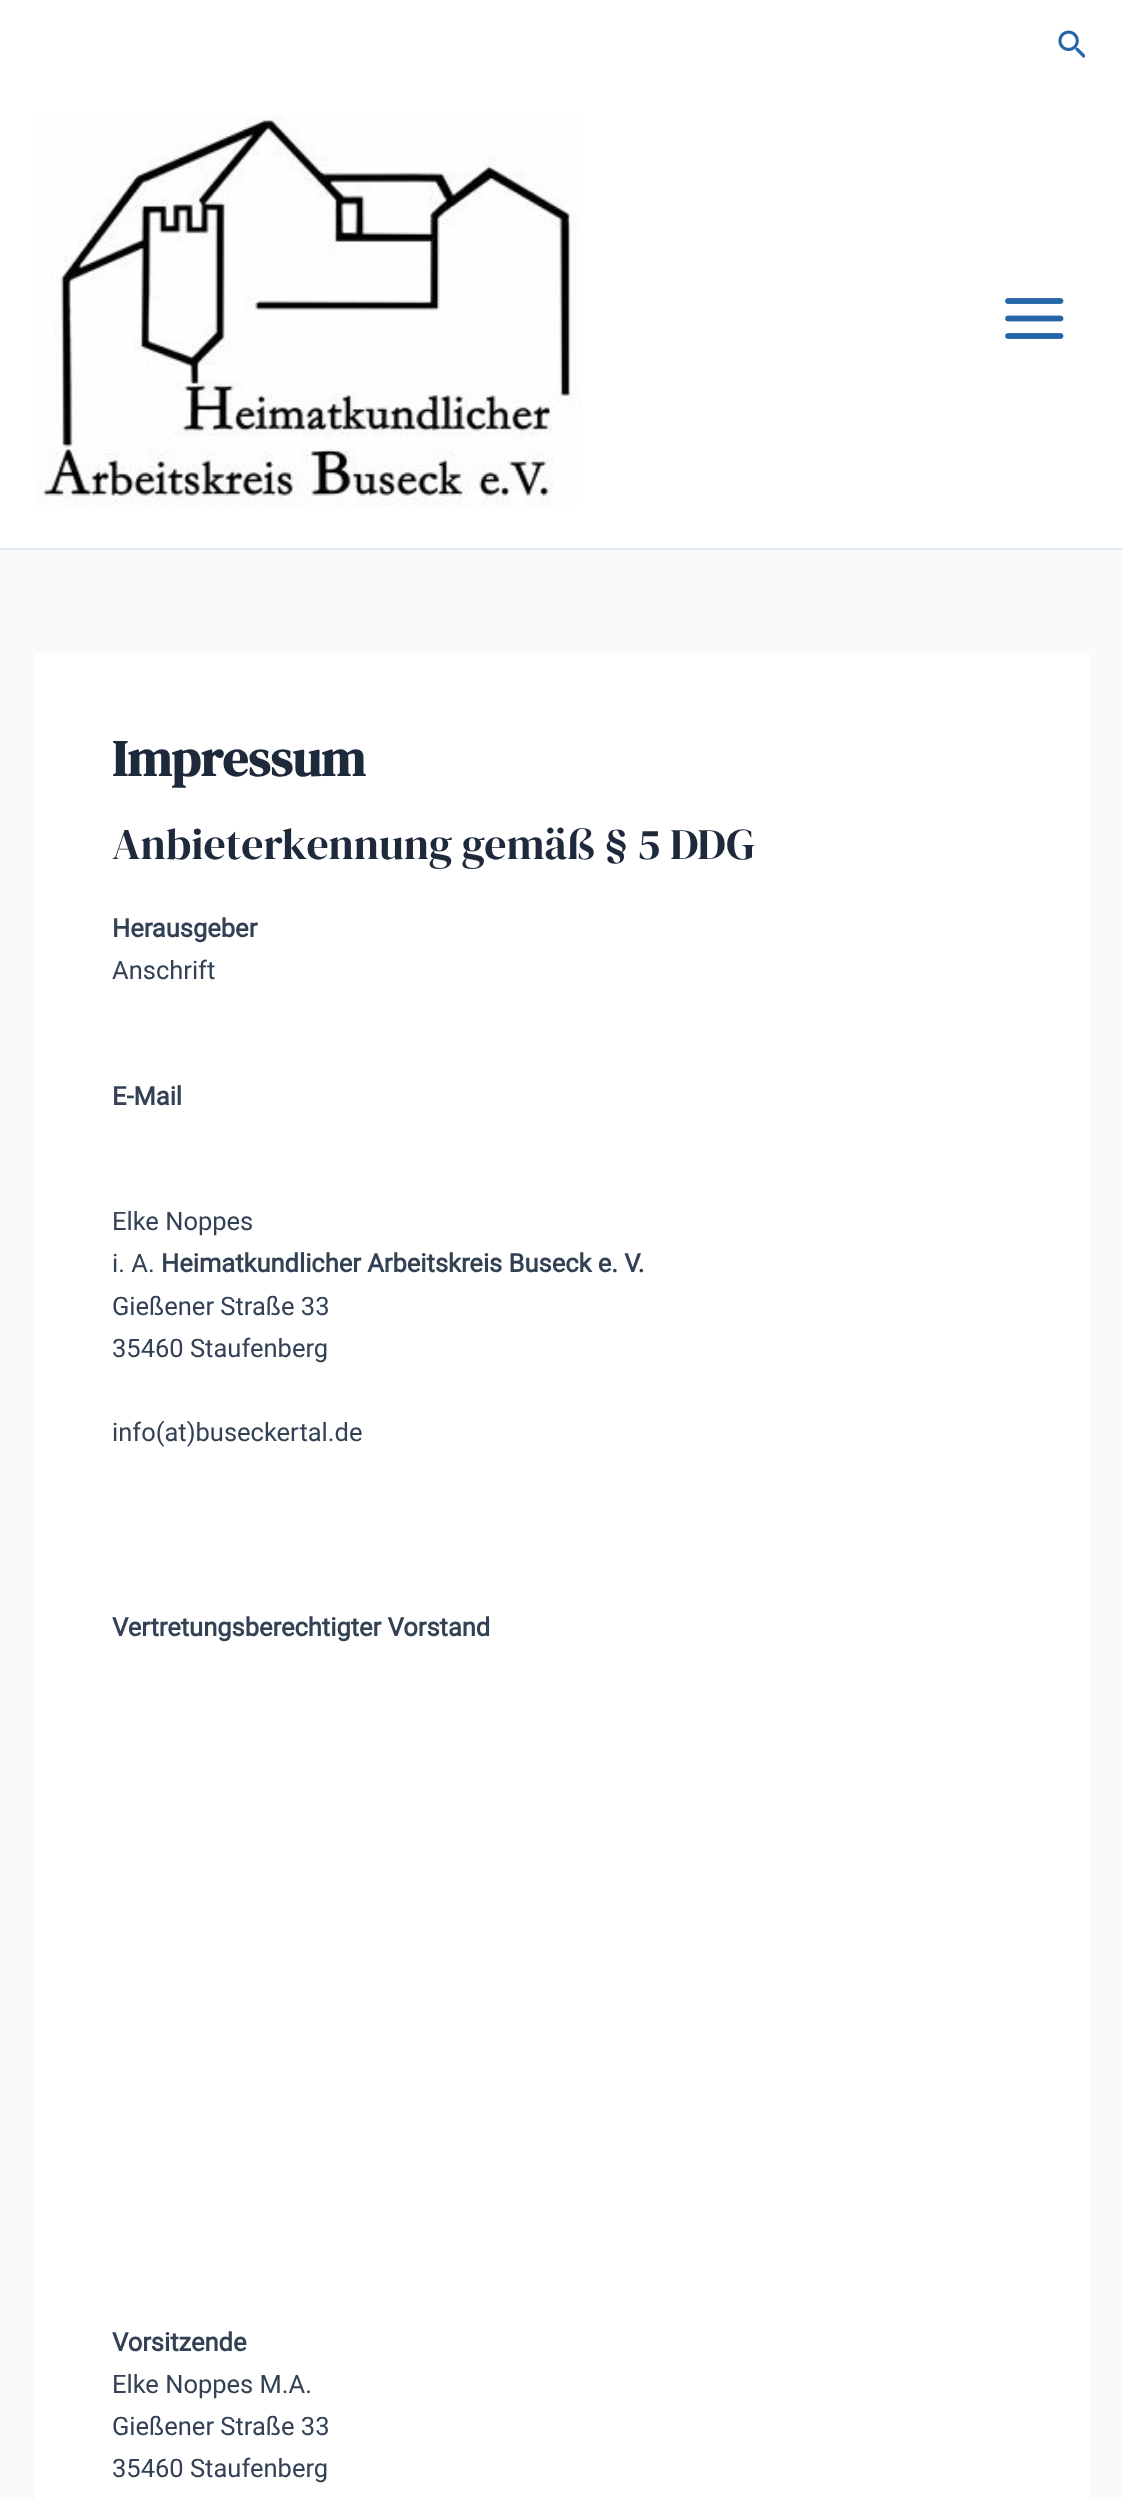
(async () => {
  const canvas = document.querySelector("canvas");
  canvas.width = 1122;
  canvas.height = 2500;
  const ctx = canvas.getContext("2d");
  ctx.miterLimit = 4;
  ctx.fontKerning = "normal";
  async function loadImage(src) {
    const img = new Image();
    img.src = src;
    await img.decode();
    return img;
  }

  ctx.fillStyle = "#f9fafb";
  ctx.fillRect(0, 0, 1122, 2500);
  ctx.fillStyle = "#ffffff";
  ctx.fillRect(0, 0, 1122, 548);
  ctx.drawImage(await loadImage("img/1.png"), 1058, 30, 27, 28);
  ctx.fillStyle = "#e2e8f0";
  ctx.fillRect(0, 548, 1122, 2);
  ctx.drawImage(await loadImage("img/2.png"), 35, 114, 546, 392);
  ctx.drawImage(await loadImage("img/3.png"), 1005, 298, 59, 41);
  ctx.fillStyle = "#ffffff";
  ctx.fillRect(35, 653, 1054, 1847);
  ctx.font = "bold 51px DM Serif Display";
  ctx.fillStyle = "#1e293b";
  ctx.fillText("Impressum", 112, 776);
  ctx.font = "43.75px DM Serif Display";
  ctx.fillText("Anbieterkennung gemäß § 5 DDG", 112, 859);
  ctx.font = "bold 25.5px Roboto";
  ctx.fillStyle = "#334155";
  ctx.fillText("Herausgeber", 112, 937);
  ctx.font = "25.5px Roboto";
  ctx.fillText("Anschrift", 112, 979);
  ctx.font = "bold 25.5px Roboto";
  ctx.fillText("E-Mail", 112, 1105);
  ctx.font = "25.5px Roboto";
  ctx.fillText("Elke Noppes", 112, 1230);
  ctx.fillText("i. A.", 112, 1272);
  ctx.font = "bold 25.5px Roboto";
  ctx.fillText("Heimatkundlicher Arbeitskreis Buseck e. V.", 161, 1272);
  ctx.font = "25.5px Roboto";
  for (const [text, x, y] of [
    ["Gießener Straße 33", 112, 1315],
    ["35460 Staufenberg", 112, 1357],
    ["info(at)buseckertal.de", 112, 1441],
  ]) {
    ctx.fillText(text, x, y);
  }
  ctx.font = "bold 25.5px Roboto";
  ctx.fillText("Vertretungsberechtigter Vorstand", 112, 1636);
  ctx.fillText("Vorsitzende", 112, 2351);
  ctx.font = "25.5px Roboto";
  for (const [text, x, y] of [
    ["Elke Noppes M.A.", 112, 2393],
    ["Gießener Straße 33", 112, 2435],
    ["35460 Staufenberg", 112, 2477],
  ]) {
    ctx.fillText(text, x, y);
  }
})();
